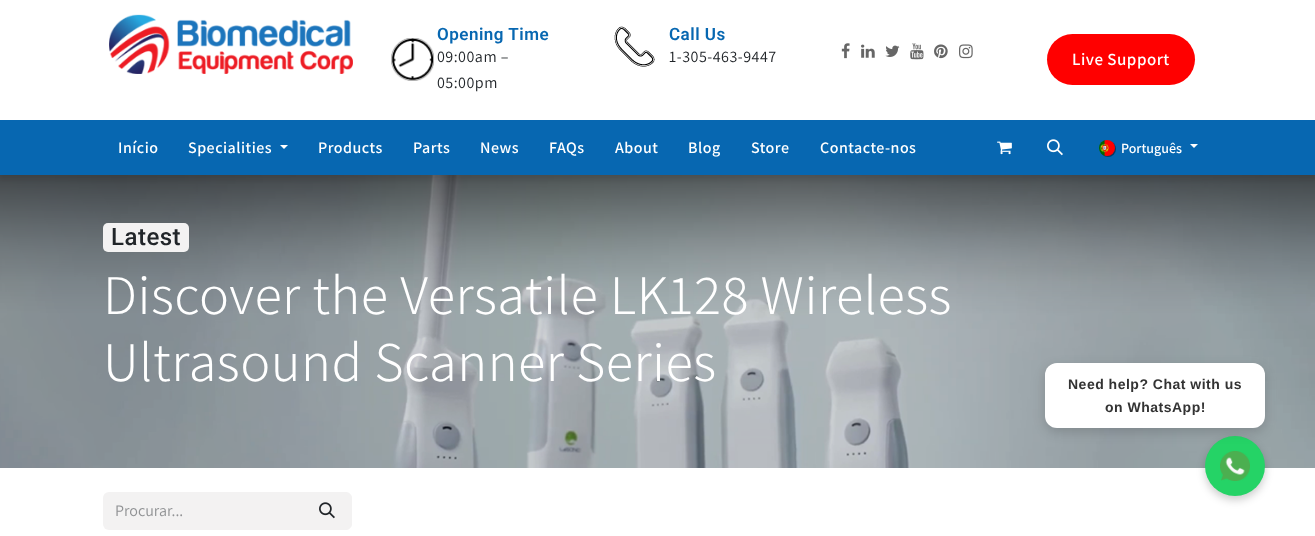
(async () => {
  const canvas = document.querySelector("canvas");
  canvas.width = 1315;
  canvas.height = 536;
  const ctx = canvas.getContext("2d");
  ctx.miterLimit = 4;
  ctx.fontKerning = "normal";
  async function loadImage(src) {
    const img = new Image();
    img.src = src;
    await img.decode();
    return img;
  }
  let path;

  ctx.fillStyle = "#ffffff";
  ctx.fillRect(0, 0, 1315, 536);
  ctx.drawImage(await loadImage("img/1.png"), 109, 14, 244, 60);
  ctx.drawImage(await loadImage("img/2.png"), 391, 38, 43, 43);
  ctx.drawImage(await loadImage("img/3.png"), 614, 26, 41, 41);
  ctx.drawImage(await loadImage("img/4.png"), 841, 43, 9, 16);
  ctx.drawImage(await loadImage("img/5.png"), 861, 44, 14, 14);
  ctx.drawImage(await loadImage("img/6.png"), 885, 45, 15, 12);
  ctx.drawImage(await loadImage("img/7.png"), 910, 43, 14, 17);
  ctx.drawImage(await loadImage("img/8.png"), 934, 44, 14, 15);
  ctx.drawImage(await loadImage("img/9.png"), 959, 44, 14, 15);
  ctx.fillStyle = "#ff0000";
  ctx.beginPath();
  ctx.roundRect(1047, 34, 148, 51, 25.5);
  ctx.fill();
  ctx.drawImage(await loadImage("img/13.png"), 0, 175, 1315, 293);
  ctx.fillStyle = "rgba(0, 0, 0, 0.07)";
  ctx.filter = "blur(2px)";
  ctx.beginPath();
  ctx.rect(0, 125, 1315, 55);
  ctx.fill();
  ctx.filter = "none";
  ctx.fillStyle = "#0767b1";
  ctx.fillRect(0, 120, 1315, 55);
  ctx.fillStyle = "#ffffff";
  path = new Path2D("M280 145H288L284 149Z");
  ctx.fill(path);
  ctx.drawImage(await loadImage("img/10.png"), 997, 141, 15, 14);
  ctx.drawImage(await loadImage("img/11.png"), 1047, 139, 16, 17);
  ctx.fillStyle = "rgba(0, 0, 0, 0.43)";
  ctx.filter = "blur(0.5px)";
  ctx.beginPath();
  ctx.roundRect(1100, 141, 16, 16, 8);
  ctx.fill();
  ctx.filter = "none";
  ctx.drawImage(await loadImage("img/12.png"), 1099, 140, 16, 16);
  ctx.fillStyle = "#ffffff";
  path = new Path2D("M1190 144H1198L1194 148Z");
  ctx.fill(path);
  ctx.fillStyle = "#f3f2f2";
  ctx.beginPath();
  ctx.roundRect(103, 223, 86, 29, 5);
  ctx.fill();
  ctx.beginPath();
  ctx.roundRect(103, 492, 200, 38, [6, 0, 0, 6]);
  ctx.fill();
  ctx.beginPath();
  ctx.roundRect(302.5, 492.5, 49, 37, [0, 5.5, 5.5, 0]);
  ctx.fill();
  ctx.strokeStyle = "#f3f2f2";
  ctx.stroke();
  ctx.drawImage(await loadImage("img/14.png"), 319, 502, 16, 17);
  ctx.fillStyle = "rgba(0, 0, 0, 0.2)";
  ctx.filter = "blur(4px)";
  ctx.beginPath();
  ctx.roundRect(1205, 440, 60, 60, 30);
  ctx.fill();
  ctx.filter = "none";
  ctx.fillStyle = "#25d366";
  ctx.beginPath();
  ctx.arc(1235, 466, 30, 0, Math.PI * 2);
  ctx.fill();
  ctx.fillStyle = "rgba(0, 0, 0, 0.15)";
  ctx.filter = "blur(6px)";
  ctx.beginPath();
  ctx.roundRect(1045, 367, 220, 65, 12);
  ctx.fill();
  ctx.filter = "none";
  ctx.fillStyle = "#ffffff";
  ctx.beginPath();
  ctx.roundRect(1045, 363, 220, 65, 12);
  ctx.fill();
  ctx.drawImage(await loadImage("img/15.png"), 1220, 451, 30, 30);
  ctx.letterSpacing = "0.5px";
  ctx.font = "600 17px Roboto";
  ctx.fillStyle = "#0767b1";
  ctx.fillText("Opening Time", 437, 40);
  ctx.font = "16px Assistant";
  ctx.fillStyle = "#212529";
  ctx.fillText("09:00am –", 437, 62);
  ctx.fillText("05:00pm", 437, 88);
  ctx.font = "600 17px Roboto";
  ctx.fillStyle = "#0767b1";
  ctx.fillText("Call Us", 669, 40);
  ctx.font = "16px Assistant";
  ctx.fillStyle = "#212529";
  ctx.fillText("1-305-463-9447", 669, 62);
  ctx.font = "600 17px Assistant";
  ctx.fillStyle = "#ffffff";
  ctx.fillText("Live Support", 1072, 65);
  ctx.font = "600 16px Assistant";
  for (const [text, x, y] of [
    ["Início", 118, 153],
    ["Specialities", 188, 153],
    ["Products", 318, 153],
    ["Parts", 413, 153],
    ["News", 480, 153],
    ["FAQs", 549, 153],
    ["About", 615, 153],
    ["Blog", 688, 153],
    ["Store", 751, 153],
    ["Contacte-nos", 820, 153],
  ]) {
    ctx.fillText(text, x, y);
  }
  ctx.letterSpacing = "0px";
  ctx.font = "600 14px Assistant";
  ctx.fillText("Português", 1121, 153);
  ctx.letterSpacing = "0.5px";
  ctx.font = "500 24px Roboto";
  ctx.fillStyle = "#212529";
  ctx.fillText("Latest", 111, 245);
  ctx.font = "300 56px Assistant";
  ctx.fillStyle = "#ffffff";
  ctx.fillText("Discover the Versatile LK128 Wireless", 103, 314);
  ctx.fillText("Ultrasound Scanner Series", 103, 381);
  ctx.letterSpacing = "0px";
  ctx.font = "16px Assistant";
  ctx.fillStyle = "#909294";
  ctx.fillText("Procurar...", 115, 516);
  ctx.letterSpacing = "0.5px";
  ctx.font = "bold 14px Liberation Sans";
  ctx.fillStyle = "#333333";
  ctx.fillText("Need help? Chat with us", 1068, 389);
  ctx.fillText("on WhatsApp!", 1105, 412);
})();
